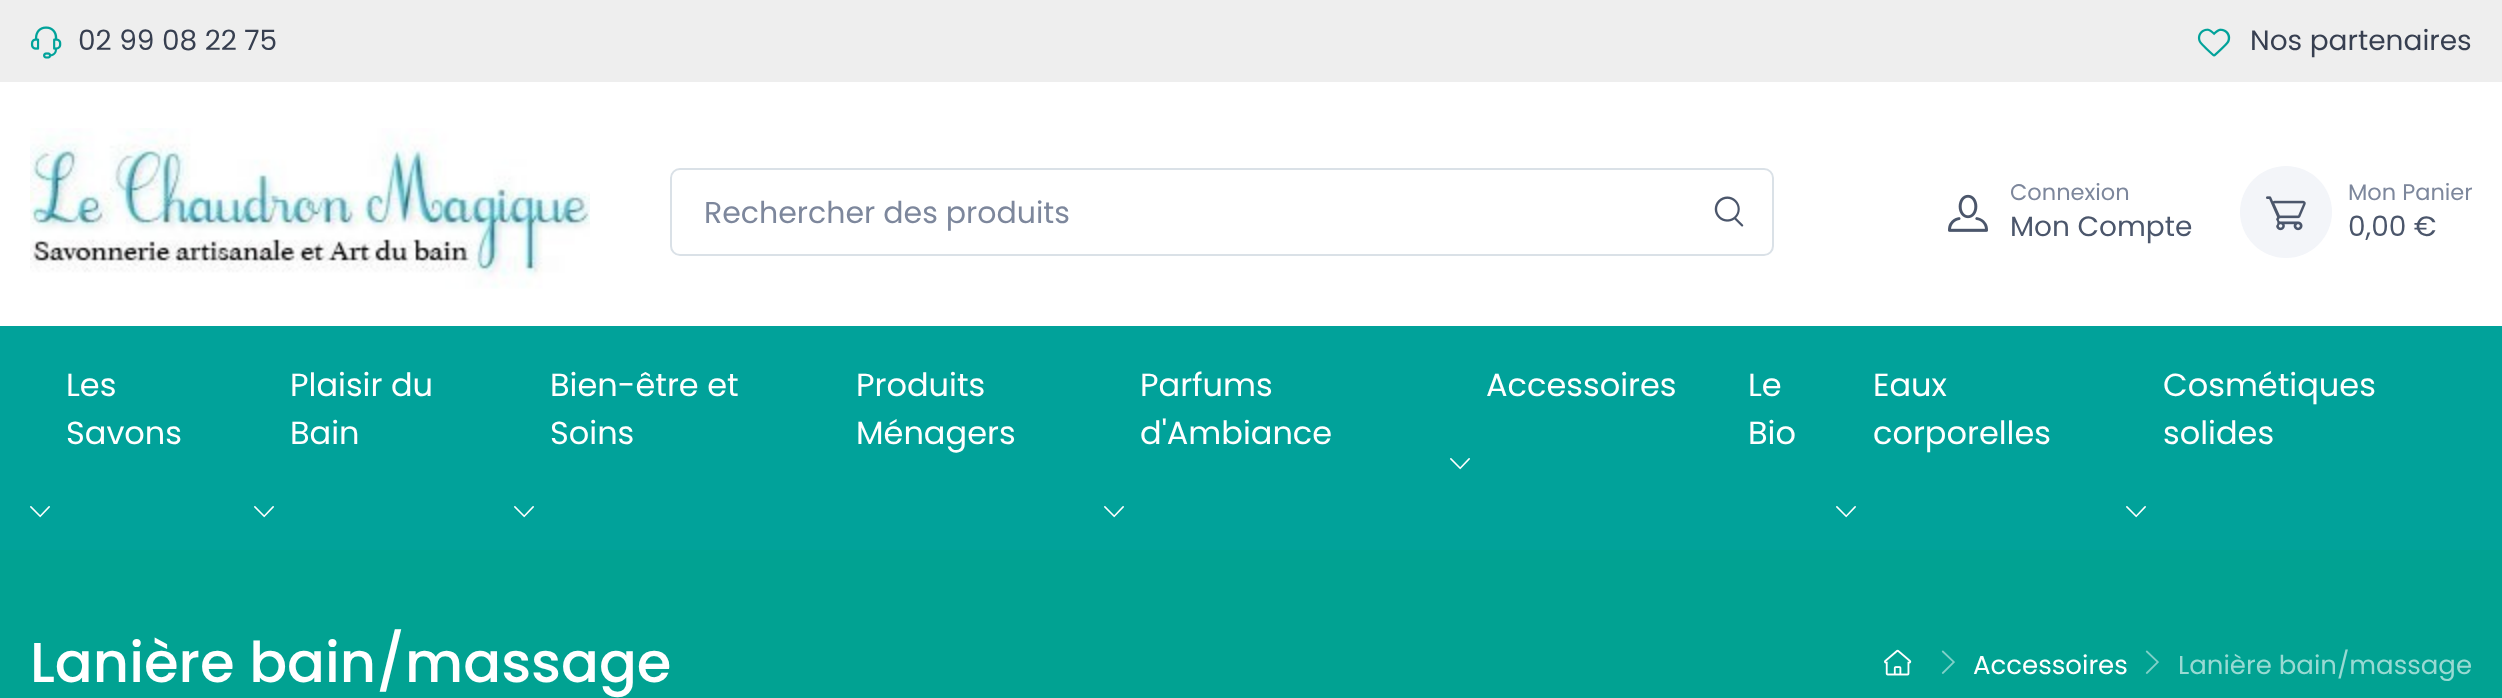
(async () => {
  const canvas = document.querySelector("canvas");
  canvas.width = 2502;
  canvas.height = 698;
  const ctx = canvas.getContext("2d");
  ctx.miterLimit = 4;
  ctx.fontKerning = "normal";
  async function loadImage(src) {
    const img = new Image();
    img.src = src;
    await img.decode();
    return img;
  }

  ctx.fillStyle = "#ffffff";
  ctx.fillRect(0, 0, 2502, 698);
  ctx.fillStyle = "#eeeeee";
  ctx.fillRect(0, 0, 2502, 82);
  ctx.drawImage(await loadImage("img/1.png"), 30, 26, 32, 33);
  ctx.drawImage(await loadImage("img/2.png"), 2197, 28, 34, 29);
  ctx.drawImage(await loadImage("img/3.png"), 30, 128, 560, 161);
  ctx.beginPath();
  ctx.roundRect(671, 169, 1102, 86, 9);
  ctx.strokeStyle = "#dae1e7";
  ctx.lineWidth = 2;
  ctx.stroke();
  ctx.drawImage(await loadImage("img/4.png"), 1714, 196, 30, 31);
  ctx.drawImage(await loadImage("img/5.png"), 1948, 194, 40, 38);
  ctx.fillStyle = "#f3f5f9";
  ctx.beginPath();
  ctx.arc(2286, 212, 46, 0, Math.PI * 2);
  ctx.fill();
  ctx.drawImage(await loadImage("img/6.png"), 2266, 196, 40, 35);
  ctx.fillStyle = "#01a29a";
  ctx.fillRect(0, 326, 2502, 224);
  ctx.drawImage(await loadImage("img/7.png"), 30, 506, 20, 12);
  ctx.drawImage(await loadImage("img/7.png"), 254, 506, 20, 12);
  ctx.drawImage(await loadImage("img/7.png"), 514, 506, 20, 12);
  ctx.drawImage(await loadImage("img/7.png"), 1104, 506, 20, 12);
  ctx.drawImage(await loadImage("img/7.png"), 1450, 458, 20, 12);
  ctx.drawImage(await loadImage("img/7.png"), 1836, 506, 20, 12);
  ctx.drawImage(await loadImage("img/7.png"), 2126, 506, 20, 12);
  ctx.fillStyle = "#01a292";
  ctx.fillRect(0, 550, 2502, 148);
  ctx.drawImage(await loadImage("img/8.png"), 1884, 649, 28, 27);
  ctx.drawImage(await loadImage("img/9.png"), 1941, 650, 14, 24);
  ctx.drawImage(await loadImage("img/9.png"), 2145, 650, 14, 24);
  ctx.font = "28px Poppins";
  ctx.fillStyle = "#373f50";
  ctx.fillText("02 99 08 22 75", 78, 50);
  ctx.fillText("Nos partenaires", 2250, 50);
  ctx.font = "30px Poppins";
  ctx.fillStyle = "#7d879c";
  ctx.fillText("Rechercher des produits", 704, 223);
  ctx.font = "22.5px Poppins";
  ctx.fillText("Connexion", 2010, 200);
  ctx.font = "28px Poppins";
  ctx.fillStyle = "#4b566b";
  ctx.fillText("Mon Compte", 2010, 236);
  ctx.font = "22.5px Poppins";
  ctx.fillStyle = "#7d879c";
  ctx.fillText("Mon Panier", 2348, 200);
  ctx.font = "28px Poppins";
  ctx.fillStyle = "#4b566b";
  ctx.fillText("0,00 €", 2348, 236);
  ctx.font = "32px Poppins";
  ctx.fillStyle = "#ffffff";
  for (const [text, x, y] of [
    ["Les", 66, 396],
    ["Savons", 66, 444],
    ["Plaisir du", 290, 396],
    ["Bain", 290, 444],
    ["Bien-être et", 550, 396],
    ["Soins", 550, 444],
    ["Produits", 856, 396],
    ["Ménagers", 856, 444],
    ["Parfums", 1140, 396],
    ["d'Ambiance", 1140, 444],
    ["Accessoires", 1486, 396],
    ["Le", 1748, 396],
    ["Bio", 1748, 444],
    ["Eaux", 1873, 396],
    ["corporelles", 1873, 444],
    ["Cosmétiques", 2163, 396],
    ["solides", 2163, 444],
  ]) {
    ctx.fillText(text, x, y);
  }
  ctx.font = "500 56px Poppins";
  ctx.fillText("Lanière bain/massage", 30, 682);
  ctx.font = "26px Poppins";
  ctx.fillText("Accessoires", 1973, 674);
  ctx.fillStyle = "#99dad3";
  ctx.fillText("Lanière bain/massage", 2178, 674);
})();
